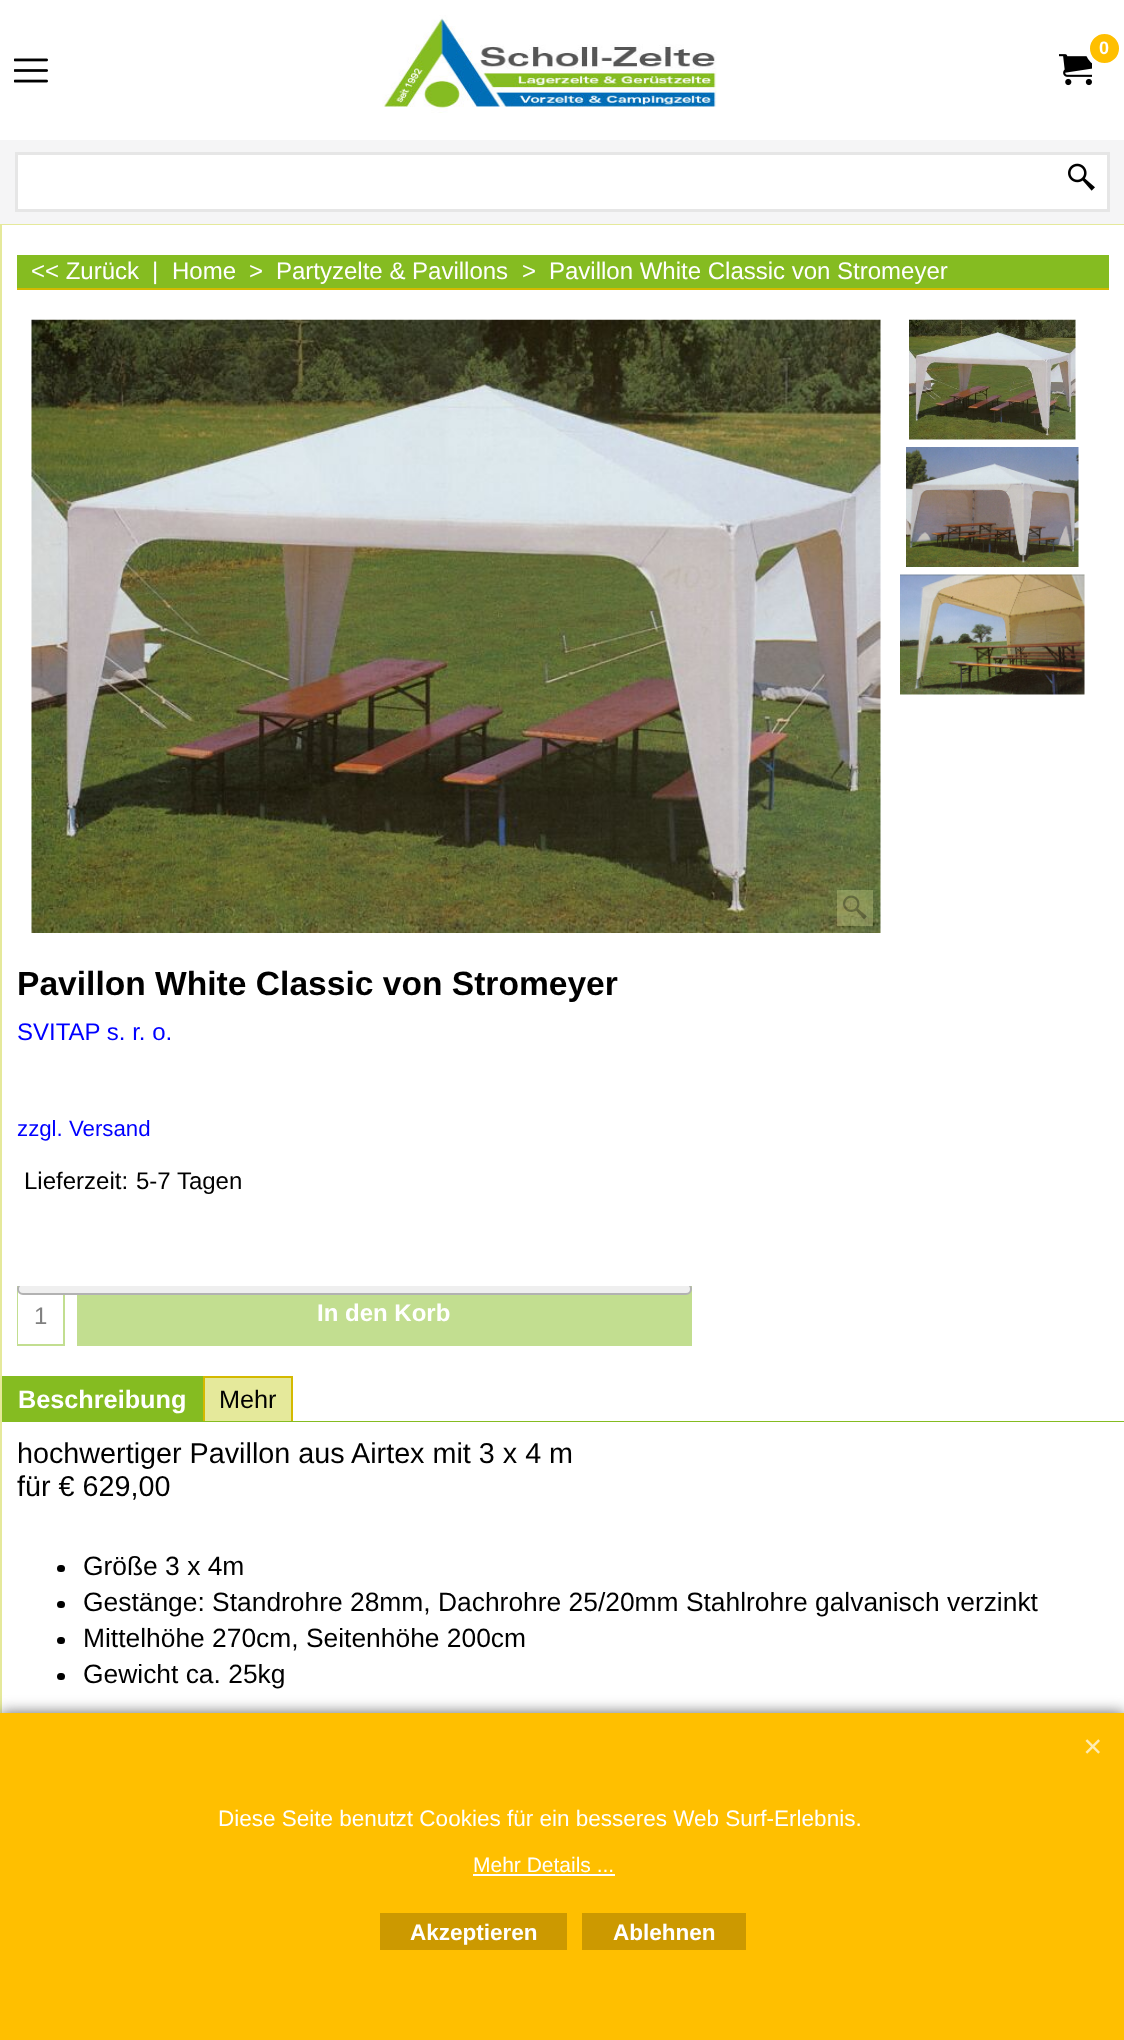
(async () => {
  const canvas = document.querySelector("canvas");
  canvas.width = 1124;
  canvas.height = 2040;
  const ctx = canvas.getContext("2d");
  ctx.miterLimit = 4;
  ctx.fontKerning = "normal";
  async function loadImage(src) {
    const img = new Image();
    img.src = src;
    await img.decode();
    return img;
  }

  ctx.fillStyle = "#e5e99b";
  ctx.fillRect(0, 0, 1124, 2040);
  ctx.fillStyle = "#ffffff";
  ctx.fillRect(0, 0, 1124, 140);
  ctx.drawImage(await loadImage("img/1.png"), 382, 15, 335, 98);
  ctx.drawImage(await loadImage("img/2.png"), 1059, 54, 33, 32);
  ctx.fillStyle = "#ffbf00";
  ctx.beginPath();
  ctx.arc(1104.5, 48.5, 17, 0, Math.PI * 2);
  ctx.fill();
  ctx.strokeStyle = "#ffffff";
  ctx.lineWidth = 5;
  ctx.stroke();
  ctx.drawImage(await loadImage("img/3.png"), 14, 58, 34, 25);
  ctx.fillStyle = "#f5f5f6";
  ctx.fillRect(0, 140, 1124, 84);
  ctx.fillStyle = "#ffffff";
  ctx.beginPath();
  ctx.rect(16.5, 153.5, 1092, 57);
  ctx.fill();
  ctx.strokeStyle = "#e6e6e6";
  ctx.lineWidth = 3;
  ctx.stroke();
  ctx.drawImage(await loadImage("img/4.png"), 1068, 163, 27, 28);
  for (const [x, y, w, h, color] of [
    [2, 225, 1122, 1488, "#ffffff"],
    [17, 255, 1092, 33, "#85bc21"],
    [17, 288, 1092, 2, "#d4b900"],
  ]) {
    ctx.fillStyle = color;
    ctx.fillRect(x, y, w, h);
  }
  ctx.drawImage(await loadImage("img/5.png"), 31, 319, 850, 614);
  ctx.fillStyle = "rgba(229, 233, 155, 0.3)";
  ctx.fillRect(837, 890, 36, 36);
  ctx.drawImage(await loadImage("img/6.png"), 843, 895, 24, 25);
  ctx.drawImage(await loadImage("img/7.png"), 909, 319, 167, 121);
  ctx.drawImage(await loadImage("img/8.png"), 906, 447, 173, 120);
  ctx.drawImage(await loadImage("img/9.png"), 900, 574, 185, 121);
  for (const [x, y, w, h, color] of [
    [17, 1286, 48, 60, "#c2de90"],
    [18, 1292, 45, 52, "#ffffff"],
    [77, 1286, 615, 60, "#c2de90"],
  ]) {
    ctx.fillStyle = color;
    ctx.fillRect(x, y, w, h);
  }
  ctx.save();
  ctx.beginPath();
  ctx.rect(17, 1286, 675, 60);
  ctx.clip();
  ctx.fillStyle = "#efefef";
  ctx.beginPath();
  ctx.roundRect(18, 1284, 673, 10, 5);
  ctx.fill();
  ctx.strokeStyle = "#b2b2b2";
  ctx.lineWidth = 2;
  ctx.stroke();
  ctx.restore();
  for (const [x, y, w, h, color] of [
    [2, 1376, 201, 46, "#85bc21"],
    [205, 1378, 86, 43, "#e5e99b"],
    [203, 1376, 90, 2, "#d4b900"],
    [291, 1376, 2, 45, "#d4b900"],
    [203, 1376, 2, 45, "#d4b900"],
    [203, 1421, 921, 1, "#85bc21"],
  ]) {
    ctx.fillStyle = color;
    ctx.fillRect(x, y, w, h);
  }
  ctx.fillStyle = "#000000";
  ctx.beginPath();
  ctx.roundRect(57, 1565, 8, 7, 3.5);
  ctx.fill();
  ctx.beginPath();
  ctx.roundRect(57, 1601, 8, 7, 3.5);
  ctx.fill();
  ctx.beginPath();
  ctx.roundRect(57, 1637, 8, 7, 3.5);
  ctx.fill();
  ctx.beginPath();
  ctx.roundRect(57, 1673, 8, 7, 3.5);
  ctx.fill();
  ctx.fillStyle = "#666666";
  ctx.filter = "blur(7.5px)";
  ctx.beginPath();
  ctx.rect(0, 1713, 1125, 327);
  ctx.fill();
  ctx.filter = "none";
  ctx.fillStyle = "#ffbf00";
  ctx.fillRect(0, 1713, 1124, 327);
  ctx.drawImage(await loadImage("img/10.png"), 1085, 1739, 15, 15);
  for (const [x, y, w, h, color] of [
    [473, 1874, 142, 2, "#ffffff"],
    [380, 1913, 187, 37, "#cc9900"],
    [582, 1913, 164, 37, "#cc9900"],
  ]) {
    ctx.fillStyle = color;
    ctx.fillRect(x, y, w, h);
  }
  ctx.font = "bold 18px Liberation Sans";
  ctx.fillStyle = "#ffffff";
  ctx.fillText("0", 1099, 54);
  ctx.font = "24px Liberation Sans";
  for (const [text, x, y] of [
    ["<< Zurück", 31, 279],
    ["|", 152, 279],
    ["Home", 172, 279],
    [">", 249, 279],
    ["Partyzelte & Pavillons", 276, 279],
    [">", 522, 279],
    ["Pavillon White Classic von Stromeyer", 549, 279],
  ]) {
    ctx.fillText(text, x, y);
  }
  ctx.font = "bold 33.6px Liberation Sans";
  ctx.fillStyle = "#000000";
  ctx.fillText("Pavillon White Classic von Stromeyer", 17, 995);
  ctx.font = "24px Liberation Sans";
  ctx.fillStyle = "#0000ff";
  ctx.fillText("SVITAP s. r. o.", 17, 1040);
  ctx.font = "22.25px Liberation Sans";
  ctx.fillText("zzgl. Versand", 17, 1136);
  ctx.font = "24px Liberation Sans";
  ctx.fillStyle = "#000000";
  ctx.fillText("Lieferzeit:", 24, 1189);
  ctx.fillText("5-7 Tagen", 136, 1189);
  ctx.fillStyle = "#808080";
  ctx.fillText("1", 34, 1324);
  ctx.font = "bold 24px Liberation Sans";
  ctx.fillStyle = "#ffffff";
  ctx.fillText("In den Korb", 317, 1321);
  ctx.font = "bold 25.25px Liberation Sans";
  ctx.fillText("Beschreibung", 18, 1408);
  ctx.font = "25.25px Liberation Sans";
  ctx.fillStyle = "#000000";
  ctx.fillText("Mehr", 219, 1408);
  ctx.font = "28.75px Liberation Sans";
  ctx.fillText("hochwertiger Pavillon aus Airtex mit 3 x 4 m", 17, 1463);
  ctx.fillText("für € 629,00", 17, 1496);
  ctx.font = "26.4px Liberation Sans";
  for (const [text, x, y] of [
    ["Größe 3 x 4m", 83, 1575],
    ["Gestänge: Standrohre 28mm, Dachrohre 25/20mm Stahlrohre galvanisch verzinkt", 83, 1611],
    ["Mittelhöhe 270cm, Seitenhöhe 200cm", 83, 1647],
    ["Gewicht ca. 25kg", 83, 1683],
  ]) {
    ctx.fillText(text, x, y);
  }
  ctx.font = "22.5px Liberation Sans";
  ctx.fillStyle = "#ffffff";
  ctx.fillText("Diese Seite benutzt Cookies für ein besseres Web Surf-Erlebnis.", 218, 1826);
  ctx.font = "21px Liberation Sans";
  ctx.fillText("Mehr Details ...", 473, 1872);
  ctx.font = "bold 22.5px Liberation Sans";
  ctx.fillText("Akzeptieren", 410, 1940);
  ctx.fillText("Ablehnen", 613, 1940);
})();
